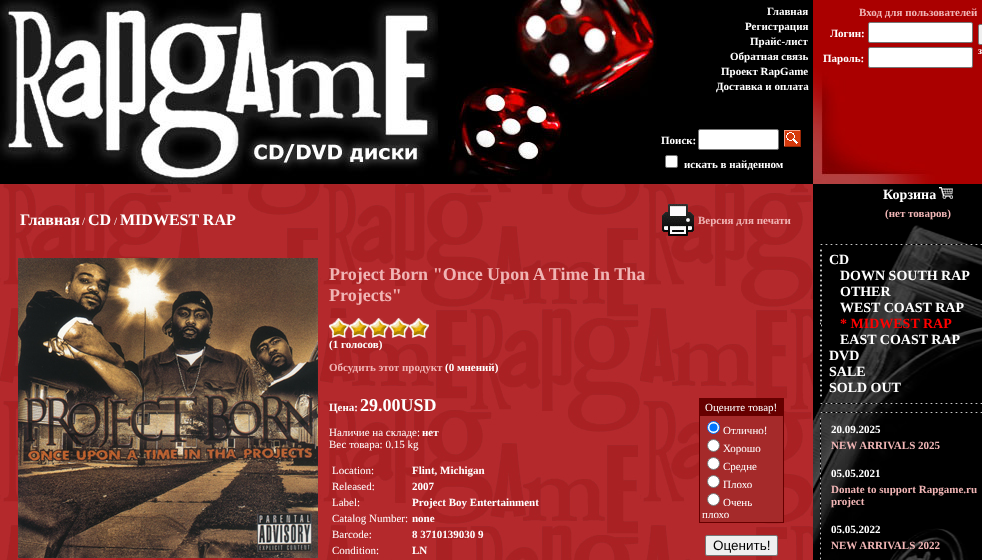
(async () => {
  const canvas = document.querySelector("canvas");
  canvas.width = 982;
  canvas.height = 560;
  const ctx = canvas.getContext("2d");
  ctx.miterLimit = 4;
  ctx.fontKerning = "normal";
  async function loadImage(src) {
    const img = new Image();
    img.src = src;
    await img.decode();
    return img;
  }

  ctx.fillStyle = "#000000";
  ctx.fillRect(0, 0, 982, 560);
  ctx.drawImage(await loadImage("img/1.png"), 0, 0, 657, 184);
  ctx.fillStyle = "#ffffff";
  ctx.beginPath();
  ctx.roundRect(698.5, 129.5, 80, 20, 1.5);
  ctx.fill();
  ctx.strokeStyle = "#767676";
  ctx.stroke();
  ctx.drawImage(await loadImage("img/2.png"), 784, 130, 17, 17);
  ctx.beginPath();
  ctx.roundRect(665.5, 155.5, 12, 12, 1.5);
  ctx.fill();
  ctx.stroke();
  ctx.drawImage(await loadImage("img/3.png"), 813, 0, 169, 184);
  ctx.beginPath();
  ctx.roundRect(868.5, 22.5, 104, 20, 1.5);
  ctx.fill();
  ctx.stroke();
  ctx.beginPath();
  ctx.roundRect(868.5, 47.5, 104, 20, 1.5);
  ctx.fill();
  ctx.stroke();
  ctx.fillStyle = "#efefef";
  ctx.beginPath();
  ctx.roundRect(978.5, 24.5, 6, 20, 1.5);
  ctx.fill();
  ctx.stroke();
  ctx.drawImage(await loadImage("img/4.png"), 0, 184, 813, 376);
  ctx.drawImage(await loadImage("img/5.png"), 662, 204, 32, 32);
  ctx.drawImage(await loadImage("img/6.png"), 18, 258, 300, 300);
  ctx.drawImage(await loadImage("img/7.png"), 329, 318, 20, 20);
  ctx.drawImage(await loadImage("img/7.png"), 349, 318, 20, 20);
  ctx.drawImage(await loadImage("img/7.png"), 369, 318, 20, 20);
  ctx.drawImage(await loadImage("img/7.png"), 389, 318, 20, 20);
  ctx.drawImage(await loadImage("img/7.png"), 409, 318, 20, 20);
  ctx.fillStyle = "#660000";
  ctx.fillRect(699, 398, 85, 125);
  ctx.fillStyle = "#a52a2a";
  ctx.fillRect(700, 416, 83, 106);
  ctx.fillStyle = "#ffffff";
  ctx.beginPath();
  ctx.arc(713.5, 427.5, 6, 0, Math.PI * 2);
  ctx.fill();
  ctx.strokeStyle = "#0075ff";
  ctx.stroke();
  ctx.fillStyle = "#0075ff";
  ctx.beginPath();
  ctx.arc(713.5, 427.5, 4, 0, Math.PI * 2);
  ctx.fill();
  ctx.fillStyle = "#ffffff";
  ctx.beginPath();
  ctx.arc(713.5, 445.5, 6, 0, Math.PI * 2);
  ctx.fill();
  ctx.strokeStyle = "#767676";
  ctx.stroke();
  ctx.beginPath();
  ctx.arc(713.5, 463.5, 6, 0, Math.PI * 2);
  ctx.fill();
  ctx.stroke();
  ctx.beginPath();
  ctx.arc(713.5, 481.5, 6, 0, Math.PI * 2);
  ctx.fill();
  ctx.stroke();
  ctx.beginPath();
  ctx.arc(713.5, 499.5, 6, 0, Math.PI * 2);
  ctx.fill();
  ctx.stroke();
  ctx.fillStyle = "#efefef";
  ctx.beginPath();
  ctx.roundRect(705.5, 535.5, 72, 20, 1.5);
  ctx.fill();
  ctx.stroke();
  ctx.drawImage(await loadImage("img/8.png"), 813, 225, 169, 335);
  ctx.drawImage(await loadImage("img/9.png"), 939, 187, 14, 12);
  ctx.drawImage(await loadImage("img/10.png"), 820, 244, 162, 1);
  ctx.drawImage(await loadImage("img/11.png"), 820, 249, 2, 148);
  ctx.drawImage(await loadImage("img/12.png"), 820, 322, 1, 5);
  ctx.drawImage(await loadImage("img/10.png"), 820, 403, 162, 1);
  ctx.drawImage(await loadImage("img/10.png"), 820, 412, 162, 1);
  ctx.drawImage(await loadImage("img/13.png"), 820, 417, 1, 143);
  ctx.font = "bold 11px Liberation Serif";
  ctx.fillStyle = "#ffffff";
  for (const [text, x, y] of [
    ["Главная", 767, 15],
    ["Регистрация", 745, 30],
    ["Прайс-лист", 750, 45],
    ["Обратная связь", 730, 60],
    ["Проект RapGame", 721, 75],
    ["Доставка и оплата", 716, 90],
    ["Поиск:", 661, 144],
    ["искать в найденном", 684, 168],
  ]) {
    ctx.fillText(text, x, y);
  }
  ctx.fillStyle = "#f0b5b5";
  ctx.fillText("Вход для пользователей", 859, 16);
  ctx.fillStyle = "#ffffff";
  ctx.fillText("Логин:", 830, 37);
  ctx.fillText("Пароль:", 823, 62);
  ctx.font = "bold 10px Liberation Serif";
  ctx.fillText("з", 978, 54);
  ctx.font = "bold 16px Liberation Serif";
  ctx.fillText("Главная", 20, 225);
  ctx.font = "11px Liberation Serif";
  ctx.fillText("/", 82, 225);
  ctx.font = "bold 16px Liberation Serif";
  ctx.fillText("CD", 88, 225);
  ctx.font = "11px Liberation Serif";
  ctx.fillText("/", 114, 225);
  ctx.font = "bold 16px Liberation Serif";
  ctx.fillText("MIDWEST RAP", 120, 225);
  ctx.font = "bold 11px Liberation Serif";
  ctx.fillStyle = "#f0b5b5";
  ctx.fillText("Версия для печати", 698, 224);
  ctx.font = "bold 18px Liberation Serif";
  ctx.fillText("Project Born \"Once Upon A Time In Tha", 329, 280);
  ctx.fillText("Projects\"", 329, 301);
  ctx.font = "bold 11px Liberation Serif";
  ctx.fillStyle = "#ffffff";
  ctx.fillText("(1 голосов)", 329, 348);
  ctx.fillStyle = "#f0b5b5";
  ctx.fillText("Обсудить этот продукт", 329, 371);
  ctx.fillStyle = "#ffffff";
  ctx.fillText("(0 мнений)", 445, 371);
  ctx.fillText("Цена:", 329, 411);
  ctx.font = "bold 18px Liberation Serif";
  ctx.fillText("29.00USD", 360, 411);
  ctx.font = "11px Liberation Serif";
  for (const [text, x, y] of [
    ["Оцените товар!", 705, 411],
    ["Отлично!", 723, 434],
    ["Хорошо", 723, 452],
    ["Средне", 723, 470],
    ["Плохо", 723, 488],
    ["Очень", 723, 506],
    ["плохо", 702, 518],
  ]) {
    ctx.fillText(text, x, y);
  }
  ctx.font = "13.5px Liberation Sans";
  ctx.fillStyle = "#000000";
  ctx.fillText("Оценить!", 713, 550);
  ctx.font = "11px Liberation Serif";
  ctx.fillStyle = "#ffffff";
  ctx.fillText("Наличие на складе:", 329, 436);
  ctx.font = "bold 11px Liberation Serif";
  ctx.fillText("нет", 422, 436);
  ctx.font = "11px Liberation Serif";
  ctx.fillText("Вес товара: 0.15 kg", 329, 448);
  ctx.fillText("Location:", 332, 474);
  ctx.font = "bold 11px Liberation Serif";
  ctx.fillText("Flint, Michigan", 412, 474);
  ctx.font = "11px Liberation Serif";
  ctx.fillText("Released:", 332, 490);
  ctx.font = "bold 11px Liberation Serif";
  ctx.fillText("2007", 412, 490);
  ctx.font = "11px Liberation Serif";
  ctx.fillText("Label:", 332, 506);
  ctx.font = "bold 11px Liberation Serif";
  ctx.fillText("Project Boy Entertainment", 412, 506);
  ctx.font = "11px Liberation Serif";
  ctx.fillText("Catalog Number:", 332, 522);
  ctx.font = "bold 11px Liberation Serif";
  ctx.fillText("none", 412, 522);
  ctx.font = "11px Liberation Serif";
  ctx.fillText("Barcode:", 332, 538);
  ctx.font = "bold 11px Liberation Serif";
  ctx.fillText("8 3710139030 9", 412, 538);
  ctx.font = "11px Liberation Serif";
  ctx.fillText("Condition:", 332, 554);
  ctx.font = "bold 11px Liberation Serif";
  ctx.fillText("LN", 412, 554);
  ctx.font = "bold 14px Liberation Serif";
  ctx.fillText("Корзина", 883, 199);
  ctx.font = "bold 11px Liberation Serif";
  ctx.fillStyle = "#f0b5b5";
  ctx.fillText("(нет товаров)", 885, 217);
  ctx.font = "bold 14px Liberation Serif";
  ctx.fillStyle = "#ffffff";
  for (const [text, x, y] of [
    ["CD", 829, 264],
    ["DOWN SOUTH RAP", 840, 280],
    ["OTHER", 840, 296],
    ["WEST COAST RAP", 840, 312],
  ]) {
    ctx.fillText(text, x, y);
  }
  ctx.fillStyle = "#ff0000";
  ctx.fillText("* MIDWEST RAP", 840, 328);
  ctx.fillStyle = "#ffffff";
  for (const [text, x, y] of [
    ["EAST COAST RAP", 840, 344],
    ["DVD", 829, 360],
    ["SALE", 829, 376],
    ["SOLD OUT", 829, 392],
  ]) {
    ctx.fillText(text, x, y);
  }
  ctx.font = "bold 11px Liberation Serif";
  ctx.fillText("20.09.2025", 831, 433);
  ctx.fillStyle = "#f0b5b5";
  ctx.fillText("NEW ARRIVALS 2025", 831, 449);
  ctx.fillStyle = "#ffffff";
  ctx.fillText("05.05.2021", 831, 477);
  ctx.fillStyle = "#f0b5b5";
  ctx.fillText("Donate to support Rapgame.ru", 831, 493);
  ctx.fillText("project", 831, 505);
  ctx.fillStyle = "#ffffff";
  ctx.fillText("05.05.2022", 831, 533);
  ctx.fillStyle = "#f0b5b5";
  ctx.fillText("NEW ARRIVALS 2022", 831, 549);
})();
